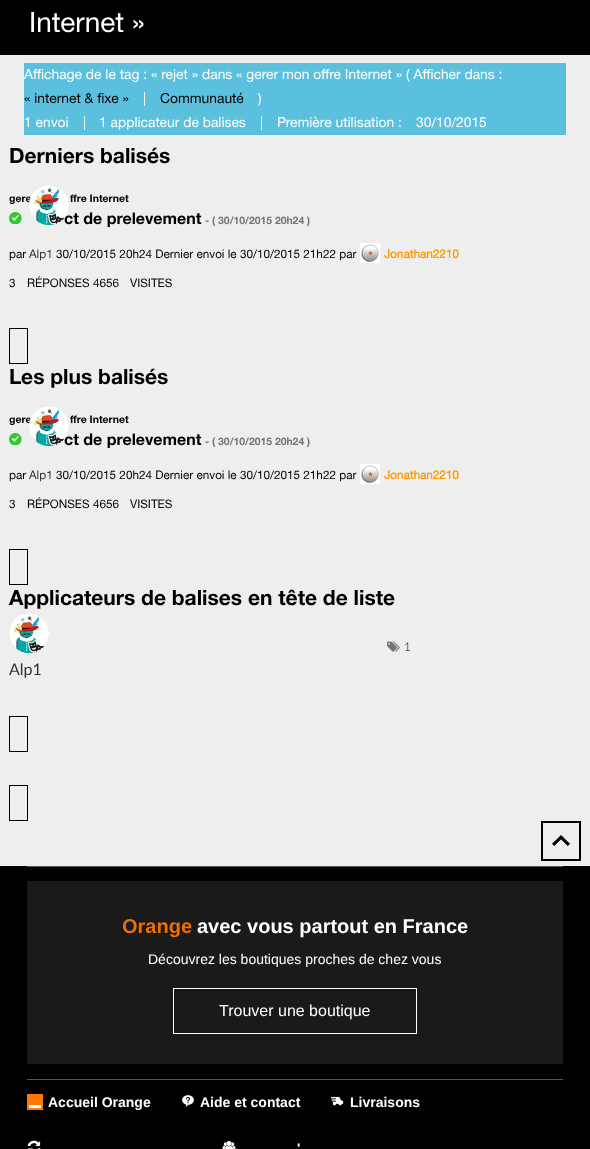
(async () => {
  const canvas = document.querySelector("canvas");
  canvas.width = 590;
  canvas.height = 1149;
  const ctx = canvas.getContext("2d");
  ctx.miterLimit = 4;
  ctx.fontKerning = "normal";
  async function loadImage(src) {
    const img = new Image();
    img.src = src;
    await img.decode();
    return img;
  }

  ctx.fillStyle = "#eeeeee";
  ctx.fillRect(0, 0, 590, 1149);
  ctx.fillStyle = "#000000";
  ctx.fillRect(0, 0, 590, 55);
  ctx.fillStyle = "#5bc0de";
  ctx.fillRect(24, 63, 542, 72);
  ctx.fillStyle = "#c4c4c4";
  ctx.filter = "blur(0.5px)";
  ctx.beginPath();
  ctx.roundRect(29, 185, 40, 40, 20);
  ctx.fill();
  ctx.filter = "none";
  ctx.drawImage(await loadImage("img/2.png"), 9, 212, 13, 12);
  ctx.drawImage(await loadImage("img/3.png"), 360, 243, 20, 20);
  ctx.strokeStyle = "#000000";
  ctx.strokeRect(9.5, 328.5, 18, 35);
  ctx.filter = "blur(0.5px)";
  ctx.beginPath();
  ctx.roundRect(29, 406, 40, 40, 20);
  ctx.fill();
  ctx.filter = "none";
  ctx.drawImage(await loadImage("img/2.png"), 9, 433, 13, 12);
  ctx.drawImage(await loadImage("img/3.png"), 360, 464, 20, 20);
  ctx.strokeRect(9.5, 549.5, 18, 35);
  ctx.drawImage(await loadImage("img/4.png"), 387, 641, 13, 11);
  ctx.filter = "blur(0.5px)";
  ctx.beginPath();
  ctx.roundRect(9, 613, 40, 40, 20);
  ctx.fill();
  ctx.filter = "none";
  ctx.drawImage(await loadImage("img/5.png"), 9, 613, 40, 40);
  ctx.strokeRect(9.5, 716.5, 18, 35);
  ctx.strokeRect(9.5, 785.5, 18, 35);
  ctx.drawImage(await loadImage("img/6.png"), 552, 835, 18, 11);
  ctx.lineWidth = 2;
  ctx.strokeRect(542, 822, 38, 38);
  for (const [x, y, w, h, color] of [
    [0, 866, 590, 283, "#000000"],
    [27, 866, 536, 1, "#555555"],
    [27, 881, 536, 183, "#1a1a1a"],
  ]) {
    ctx.fillStyle = color;
    ctx.fillRect(x, y, w, h);
  }
  ctx.strokeStyle = "#ffffff";
  ctx.lineWidth = 1;
  ctx.strokeRect(173.5, 988.5, 243, 45);
  for (const [x, y, w, h, color] of [
    [27, 1079, 536, 1, "#555555"],
    [27, 1094, 16, 16, "#ff7900"],
    [29, 1105, 12, 3, "#ffffff"],
  ]) {
    ctx.fillStyle = color;
    ctx.fillRect(x, y, w, h);
  }
  ctx.drawImage(await loadImage("img/7.png"), 182, 1095, 12, 12);
  ctx.drawImage(await loadImage("img/8.png"), 330, 1096, 14, 10);
  ctx.drawImage(await loadImage("img/9.png"), 27, 1140, 14, 9);
  ctx.drawImage(await loadImage("img/10.png"), 222, 1141, 14, 8);
  ctx.font = "28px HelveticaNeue";
  ctx.fillText("Internet »", 29, 32);
  ctx.font = "13.85px HelveticaNeue";
  ctx.fillText("Affichage de le tag : « rejet » dans « gerer mon offre Internet » ( Afficher dans :", 24, 79);
  ctx.fillStyle = "#000000";
  ctx.fillText("« internet & fixe »", 24, 103);
  ctx.fillStyle = "#ffffff";
  ctx.fillText("|", 143, 103);
  ctx.fillStyle = "#000000";
  ctx.fillText("Communauté", 160, 103);
  ctx.fillStyle = "#ffffff";
  for (const [text, x, y] of [
    [")", 258, 103],
    ["1 envoi", 24, 127],
    ["|", 83, 127],
    ["1 applicateur de balises", 99, 127],
    ["|", 260, 127],
    ["Première utilisation :", 277, 127],
    ["30/10/2015", 416, 127],
  ]) {
    ctx.fillText(text, x, y);
  }
  ctx.font = "bold 21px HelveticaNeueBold";
  ctx.fillStyle = "#000000";
  ctx.fillText("Derniers balisés", 9, 163);
  ctx.font = "bold 10.5px HelveticaNeueBold";
  ctx.fillText("gere", 9, 202);
  ctx.fillText("ffre Internet", 70, 202);
  ctx.font = "bold 16px HelveticaNeueBold";
  ctx.fillText("ct de prelevement", 64, 224);
  ctx.drawImage(await loadImage("img/1.png"), 29, 185, 40, 40);
  ctx.font = "bold 10.4px HelveticaNeueBold";
  ctx.fillStyle = "#747474";
  ctx.fillText("- ( 30/10/2015 20h24 )", 205, 224);
  ctx.font = "11.75px HelveticaNeue";
  ctx.fillStyle = "#000000";
  ctx.fillText("par", 9, 258);
  ctx.fillStyle = "#333333";
  ctx.fillText("Alp1", 29, 258);
  ctx.fillStyle = "#000000";
  ctx.fillText("30/10/2015 20h24 Dernier envoi le 30/10/2015 21h22 par", 56, 258);
  ctx.font = "bold 11.75px HelveticaNeue";
  ctx.fillStyle = "#ff9900";
  ctx.fillText("Jonathan2210", 384, 258);
  ctx.font = "11.75px HelveticaNeue";
  ctx.fillStyle = "#000000";
  for (const [text, x, y] of [
    ["3", 9, 287],
    ["RÉPONSES 4656", 27, 287],
    ["VISITES", 130, 287],
  ]) {
    ctx.fillText(text, x, y);
  }
  ctx.font = "bold 21px HelveticaNeueBold";
  ctx.fillText("Les plus balisés", 9, 384);
  ctx.font = "bold 10.5px HelveticaNeueBold";
  ctx.fillText("gere", 9, 423);
  ctx.fillText("ffre Internet", 70, 423);
  ctx.font = "bold 16px HelveticaNeueBold";
  ctx.fillText("ct de prelevement", 64, 445);
  ctx.drawImage(await loadImage("img/1.png"), 29, 406, 40, 40);
  ctx.font = "bold 10.4px HelveticaNeueBold";
  ctx.fillStyle = "#747474";
  ctx.fillText("- ( 30/10/2015 20h24 )", 205, 445);
  ctx.font = "11.75px HelveticaNeue";
  ctx.fillStyle = "#000000";
  ctx.fillText("par", 9, 479);
  ctx.fillStyle = "#333333";
  ctx.fillText("Alp1", 29, 479);
  ctx.fillStyle = "#000000";
  ctx.fillText("30/10/2015 20h24 Dernier envoi le 30/10/2015 21h22 par", 56, 479);
  ctx.font = "bold 11.75px HelveticaNeue";
  ctx.fillStyle = "#ff9900";
  ctx.fillText("Jonathan2210", 384, 479);
  ctx.font = "11.75px HelveticaNeue";
  ctx.fillStyle = "#000000";
  for (const [text, x, y] of [
    ["3", 9, 508],
    ["RÉPONSES 4656", 27, 508],
    ["VISITES", 130, 508],
  ]) {
    ctx.fillText(text, x, y);
  }
  ctx.font = "bold 21px HelveticaNeueBold";
  ctx.fillText("Applicateurs de balises en tête de liste", 9, 605);
  ctx.font = "300 12px Lato";
  ctx.fillText("1", 404, 651);
  ctx.font = "16px Lato";
  ctx.fillStyle = "#333333";
  ctx.fillText("Alp1", 9, 675);
  ctx.font = "bold 20px Liberation Sans";
  ctx.fillStyle = "#f16e00";
  ctx.fillText("Orange", 122, 933);
  ctx.fillStyle = "#ffffff";
  ctx.fillText("avec vous partout en France", 197, 933);
  ctx.font = "14px Liberation Sans";
  ctx.fillText("Découvrez les boutiques proches de chez vous", 148, 964);
  ctx.font = "16px Liberation Sans";
  ctx.fillText("Trouver une boutique", 219, 1016);
  ctx.font = "bold 14px Liberation Sans";
  for (const [text, x, y] of [
    ["Accueil Orange", 48, 1107],
    ["Aide et contact", 200, 1107],
    ["Livraisons", 350, 1107],
    ["'", 297, 1153],
  ]) {
    ctx.fillText(text, x, y);
  }
})();
